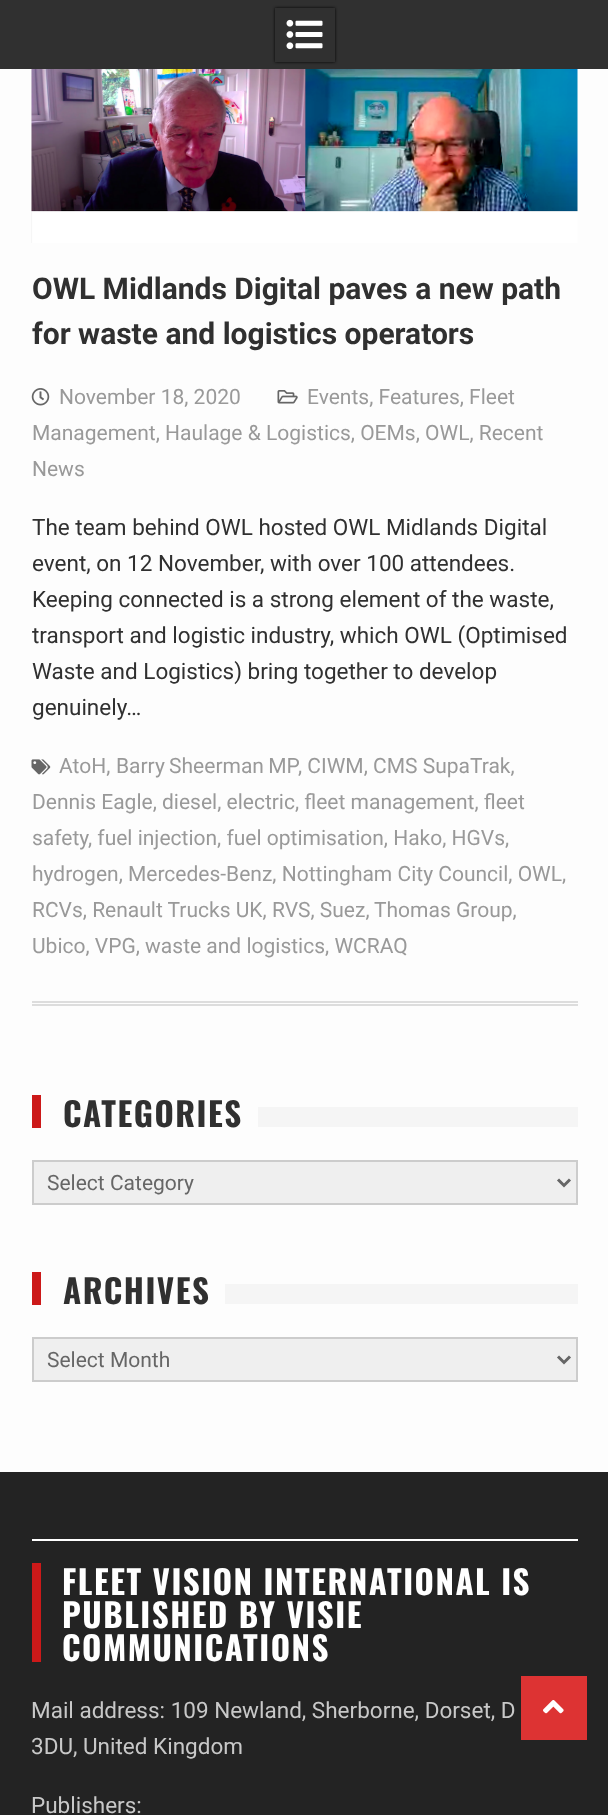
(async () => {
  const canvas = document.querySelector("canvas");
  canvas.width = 608;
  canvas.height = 1815;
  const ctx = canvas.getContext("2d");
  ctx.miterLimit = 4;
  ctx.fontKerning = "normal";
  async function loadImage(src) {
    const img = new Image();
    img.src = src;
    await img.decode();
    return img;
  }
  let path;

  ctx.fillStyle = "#fdfdfd";
  ctx.fillRect(0, 0, 608, 1815);
  ctx.fillStyle = "#303030";
  ctx.fillRect(0, 0, 608, 69);
  ctx.save();
  path = new Path2D("M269 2H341V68H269ZM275 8H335V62H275Z");
  ctx.clip(path, "evenodd");
  ctx.fillStyle = "#000000";
  ctx.filter = "blur(1.5px)";
  ctx.beginPath();
  ctx.rect(275, 8, 60, 54);
  ctx.fill();
  ctx.filter = "none";
  ctx.restore();
  ctx.drawImage(await loadImage("img/1.png"), 286, 19, 37, 31);
  ctx.fillStyle = "#dddddd";
  ctx.fillRect(32, 1001, 546, 2);
  ctx.fillRect(32, 1004, 546, 2);
  ctx.drawImage(await loadImage("img/2.png"), 31, 69, 547, 174);
  ctx.drawImage(await loadImage("img/3.png"), 277, 390, 21, 14);
  ctx.drawImage(await loadImage("img/4.png"), 31, 388, 19, 18);
  ctx.drawImage(await loadImage("img/5.png"), 31, 759, 20, 16);
  ctx.fillStyle = "#cc1919";
  ctx.fillRect(32, 1095, 9, 33);
  ctx.fillStyle = "#f5f5f5";
  ctx.fillRect(258, 1107, 320, 20);
  ctx.fillStyle = "#efefef";
  ctx.beginPath();
  ctx.rect(33, 1161, 544, 43);
  ctx.fill();
  ctx.strokeStyle = "#cccccc";
  ctx.lineWidth = 2;
  ctx.stroke();
  path = new Path2D("M558 1179.5L564 1185.5L570 1179.5");
  ctx.strokeStyle = "#666666";
  ctx.lineWidth = 3;
  ctx.stroke(path);
  ctx.fillStyle = "#cc1919";
  ctx.fillRect(32, 1272, 9, 33);
  ctx.fillStyle = "#f5f5f5";
  ctx.fillRect(225, 1284, 353, 20);
  ctx.fillStyle = "#efefef";
  ctx.beginPath();
  ctx.rect(33, 1338, 544, 43);
  ctx.fill();
  ctx.strokeStyle = "#cccccc";
  ctx.lineWidth = 2;
  ctx.stroke();
  path = new Path2D("M558 1356.5L564 1362.5L570 1356.5");
  ctx.strokeStyle = "#666666";
  ctx.lineWidth = 3;
  ctx.stroke(path);
  for (const [x, y, w, h, color] of [
    [0, 1472, 608, 343, "#232323"],
    [32, 1539, 546, 2, "#ffffff"],
    [32, 1563, 9, 99, "#cc1919"],
    [521, 1676, 66, 64, "#dd3333"],
  ]) {
    ctx.fillStyle = color;
    ctx.fillRect(x, y, w, h);
  }
  ctx.drawImage(await loadImage("img/6.png"), 543, 1700, 21, 14);
  ctx.font = "bold 30px Roboto";
  ctx.fillStyle = "#303030";
  ctx.fillText("OWL Midlands Digital paves a new path", 32, 299);
  ctx.fillText("for waste and logistics operators", 32, 344);
  ctx.font = "21px Roboto";
  ctx.fillStyle = "#999999";
  for (const [text, x, y] of [
    ["Events, Features, Fleet", 307, 404],
    ["Management, Haulage & Logistics, OEMs, OWL, Recent", 32, 440],
    ["News", 32, 476],
    ["November 18, 2020", 59, 404],
  ]) {
    ctx.fillText(text, x, y);
  }
  ctx.font = "22.5px Roboto";
  ctx.fillStyle = "#303030";
  for (const [text, x, y] of [
    ["The team behind OWL hosted OWL Midlands Digital", 32, 535],
    ["event, on 12 November, with over 100 attendees.", 32, 571],
    ["Keeping connected is a strong element of the waste,", 32, 607],
    ["transport and logistic industry, which OWL (Optimised", 32, 643],
    ["Waste and Logistics) bring together to develop", 32, 679],
    ["genuinely…", 32, 715],
  ]) {
    ctx.fillText(text, x, y);
  }
  ctx.font = "21px Roboto";
  ctx.fillStyle = "#999999";
  ctx.fillText("AtoH,", 59, 773);
  ctx.wordSpacing = "-1px";
  ctx.fillText("Barry Sheerman MP", 116, 773);
  ctx.wordSpacing = "0px";
  for (const [text, x, y] of [
    [", CIWM, CMS SupaTrak,", 298, 773],
    ["Dennis Eagle, diesel, electric, fleet management, fleet", 32, 809],
    ["safety", 32, 845],
    [", fuel injection, fuel optimisation, Hako, HGVs,", 88, 845],
    ["hydrogen, Mercedes-Benz, Nottingham City Council, OWL,", 32, 881],
    ["RCVs, Renault Trucks UK, RVS, Suez,", 32, 917],
    ["Thomas Group,", 374, 917],
    ["Ubico, VPG, waste and logistics, WCRAQ", 32, 953],
  ]) {
    ctx.fillText(text, x, y);
  }
  ctx.letterSpacing = "1.5px";
  ctx.font = "bold 33px Oswald";
  ctx.fillStyle = "#303030";
  ctx.fillText("CATEGORIES", 63, 1127);
  ctx.letterSpacing = "0px";
  ctx.font = "21px Roboto";
  ctx.fillStyle = "#666666";
  ctx.fillText("Select Category", 47, 1190);
  ctx.letterSpacing = "1.5px";
  ctx.font = "bold 33px Oswald";
  ctx.fillStyle = "#303030";
  ctx.fillText("ARCHIVES", 63, 1304);
  ctx.letterSpacing = "0px";
  ctx.font = "21px Roboto";
  ctx.fillStyle = "#666666";
  ctx.fillText("Select Month", 47, 1367);
  ctx.letterSpacing = "1.5px";
  ctx.font = "bold 33px Oswald";
  ctx.fillStyle = "#ffffff";
  for (const [text, x, y] of [
    ["FLEET VISION INTERNATIONAL IS", 62, 1595],
    ["PUBLISHED BY VISIE", 62, 1628],
    ["COMMUNICATIONS", 62, 1661],
  ]) {
    ctx.fillText(text, x, y);
  }
  ctx.letterSpacing = "0px";
  ctx.font = "22.5px Roboto";
  ctx.fillStyle = "#c8c8c8";
  for (const [text, x, y] of [
    ["Mail address: 109 Newland, Sherborne, Dorset, D", 31, 1718],
    ["3DU, United Kingdom", 31, 1754],
    ["Publishers:", 31, 1813],
  ]) {
    ctx.fillText(text, x, y);
  }
})();
